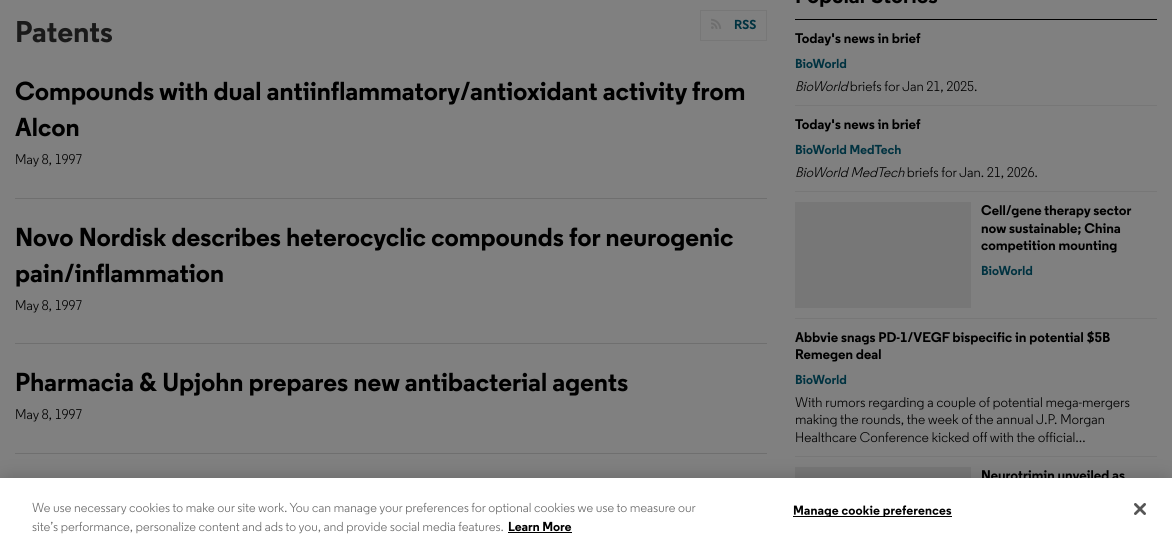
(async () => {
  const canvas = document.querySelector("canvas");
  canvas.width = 1172;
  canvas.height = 547;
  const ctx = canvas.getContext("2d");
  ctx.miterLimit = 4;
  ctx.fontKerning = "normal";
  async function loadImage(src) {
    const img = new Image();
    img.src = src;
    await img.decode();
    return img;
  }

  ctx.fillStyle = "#808080";
  ctx.fillRect(0, 0, 1172, 547);
  ctx.drawImage(await loadImage("img/1.png"), 17, 21, 95, 22);
  ctx.strokeStyle = "#777777";
  ctx.strokeRect(700.5, 10.5, 66, 30);
  ctx.drawImage(await loadImage("img/2.png"), 711, 18, 11, 11);
  ctx.drawImage(await loadImage("img/3.png"), 734, 19, 22, 11);
  ctx.fillStyle = "#6f6f6f";
  ctx.fillRect(15, 198, 752, 1);
  ctx.drawImage(await loadImage("img/4.png"), 15, 81, 730, 24);
  ctx.drawImage(await loadImage("img/5.png"), 15, 117, 64, 20);
  ctx.drawImage(await loadImage("img/6.png"), 16, 154, 66, 13);
  ctx.fillRect(15, 343, 752, 1);
  ctx.drawImage(await loadImage("img/7.png"), 16, 227, 717, 24);
  ctx.drawImage(await loadImage("img/8.png"), 16, 263, 207, 24);
  ctx.drawImage(await loadImage("img/6.png"), 16, 300, 66, 13);
  ctx.fillRect(15, 453, 752, 1);
  ctx.drawImage(await loadImage("img/9.png"), 16, 372, 612, 24);
  ctx.drawImage(await loadImage("img/6.png"), 16, 409, 66, 13);
  ctx.drawImage(await loadImage("img/10.png"), 796, 0, 142, 7);
  ctx.fillStyle = "#000000";
  ctx.fillRect(795, 19, 362, 1);
  ctx.fillStyle = "#777777";
  ctx.fillRect(795, 105, 362, 1);
  ctx.drawImage(await loadImage("img/11.png"), 795, 33, 126, 13);
  ctx.drawImage(await loadImage("img/12.png"), 795, 58, 52, 11);
  ctx.drawImage(await loadImage("img/13.png"), 796, 81, 53, 11);
  ctx.drawImage(await loadImage("img/14.png"), 850, 81, 127, 12);
  ctx.fillRect(795, 191, 362, 1);
  ctx.drawImage(await loadImage("img/11.png"), 795, 119, 126, 13);
  ctx.drawImage(await loadImage("img/15.png"), 795, 144, 106, 11);
  ctx.drawImage(await loadImage("img/16.png"), 796, 167, 109, 11);
  ctx.drawImage(await loadImage("img/17.png"), 907, 167, 130, 12);
  ctx.fillRect(795, 318, 362, 1);
  ctx.fillRect(795, 202, 176, 106);
  ctx.drawImage(await loadImage("img/18.png"), 981, 205, 151, 13);
  ctx.drawImage(await loadImage("img/19.png"), 981, 223, 140, 12);
  ctx.drawImage(await loadImage("img/20.png"), 981, 240, 136, 13);
  ctx.drawImage(await loadImage("img/12.png"), 981, 265, 52, 11);
  ctx.fillRect(795, 456, 362, 1);
  ctx.drawImage(await loadImage("img/21.png"), 795, 331, 315, 14);
  ctx.drawImage(await loadImage("img/22.png"), 796, 349, 85, 13);
  ctx.drawImage(await loadImage("img/12.png"), 795, 374, 52, 11);
  ctx.drawImage(await loadImage("img/23.png"), 795, 397, 335, 13);
  ctx.drawImage(await loadImage("img/24.png"), 796, 414, 308, 13);
  ctx.drawImage(await loadImage("img/25.png"), 796, 432, 289, 11);
  ctx.fillRect(795, 467, 176, 11);
  ctx.drawImage(await loadImage("img/26.png"), 982, 470, 143, 8);
  ctx.fillStyle = "rgba(0, 0, 0, 0.2)";
  ctx.filter = "blur(9px)";
  ctx.beginPath();
  ctx.rect(0, 478, 1172, 69);
  ctx.fill();
  ctx.filter = "none";
  ctx.fillStyle = "#ffffff";
  ctx.fillRect(0, 478, 1172, 69);
  ctx.drawImage(await loadImage("img/27.png"), 32, 502, 664, 13);
  ctx.drawImage(await loadImage("img/28.png"), 32, 521, 471, 13);
  ctx.drawImage(await loadImage("img/29.png"), 508, 521, 64, 11);
  ctx.fillStyle = "#000000";
  ctx.fillRect(508, 532, 64, 1);
  ctx.drawImage(await loadImage("img/30.png"), 793, 505, 159, 11);
  ctx.fillRect(793, 516, 159, 1);
  ctx.drawImage(await loadImage("img/31.png"), 1134, 503, 12, 12);
})();
